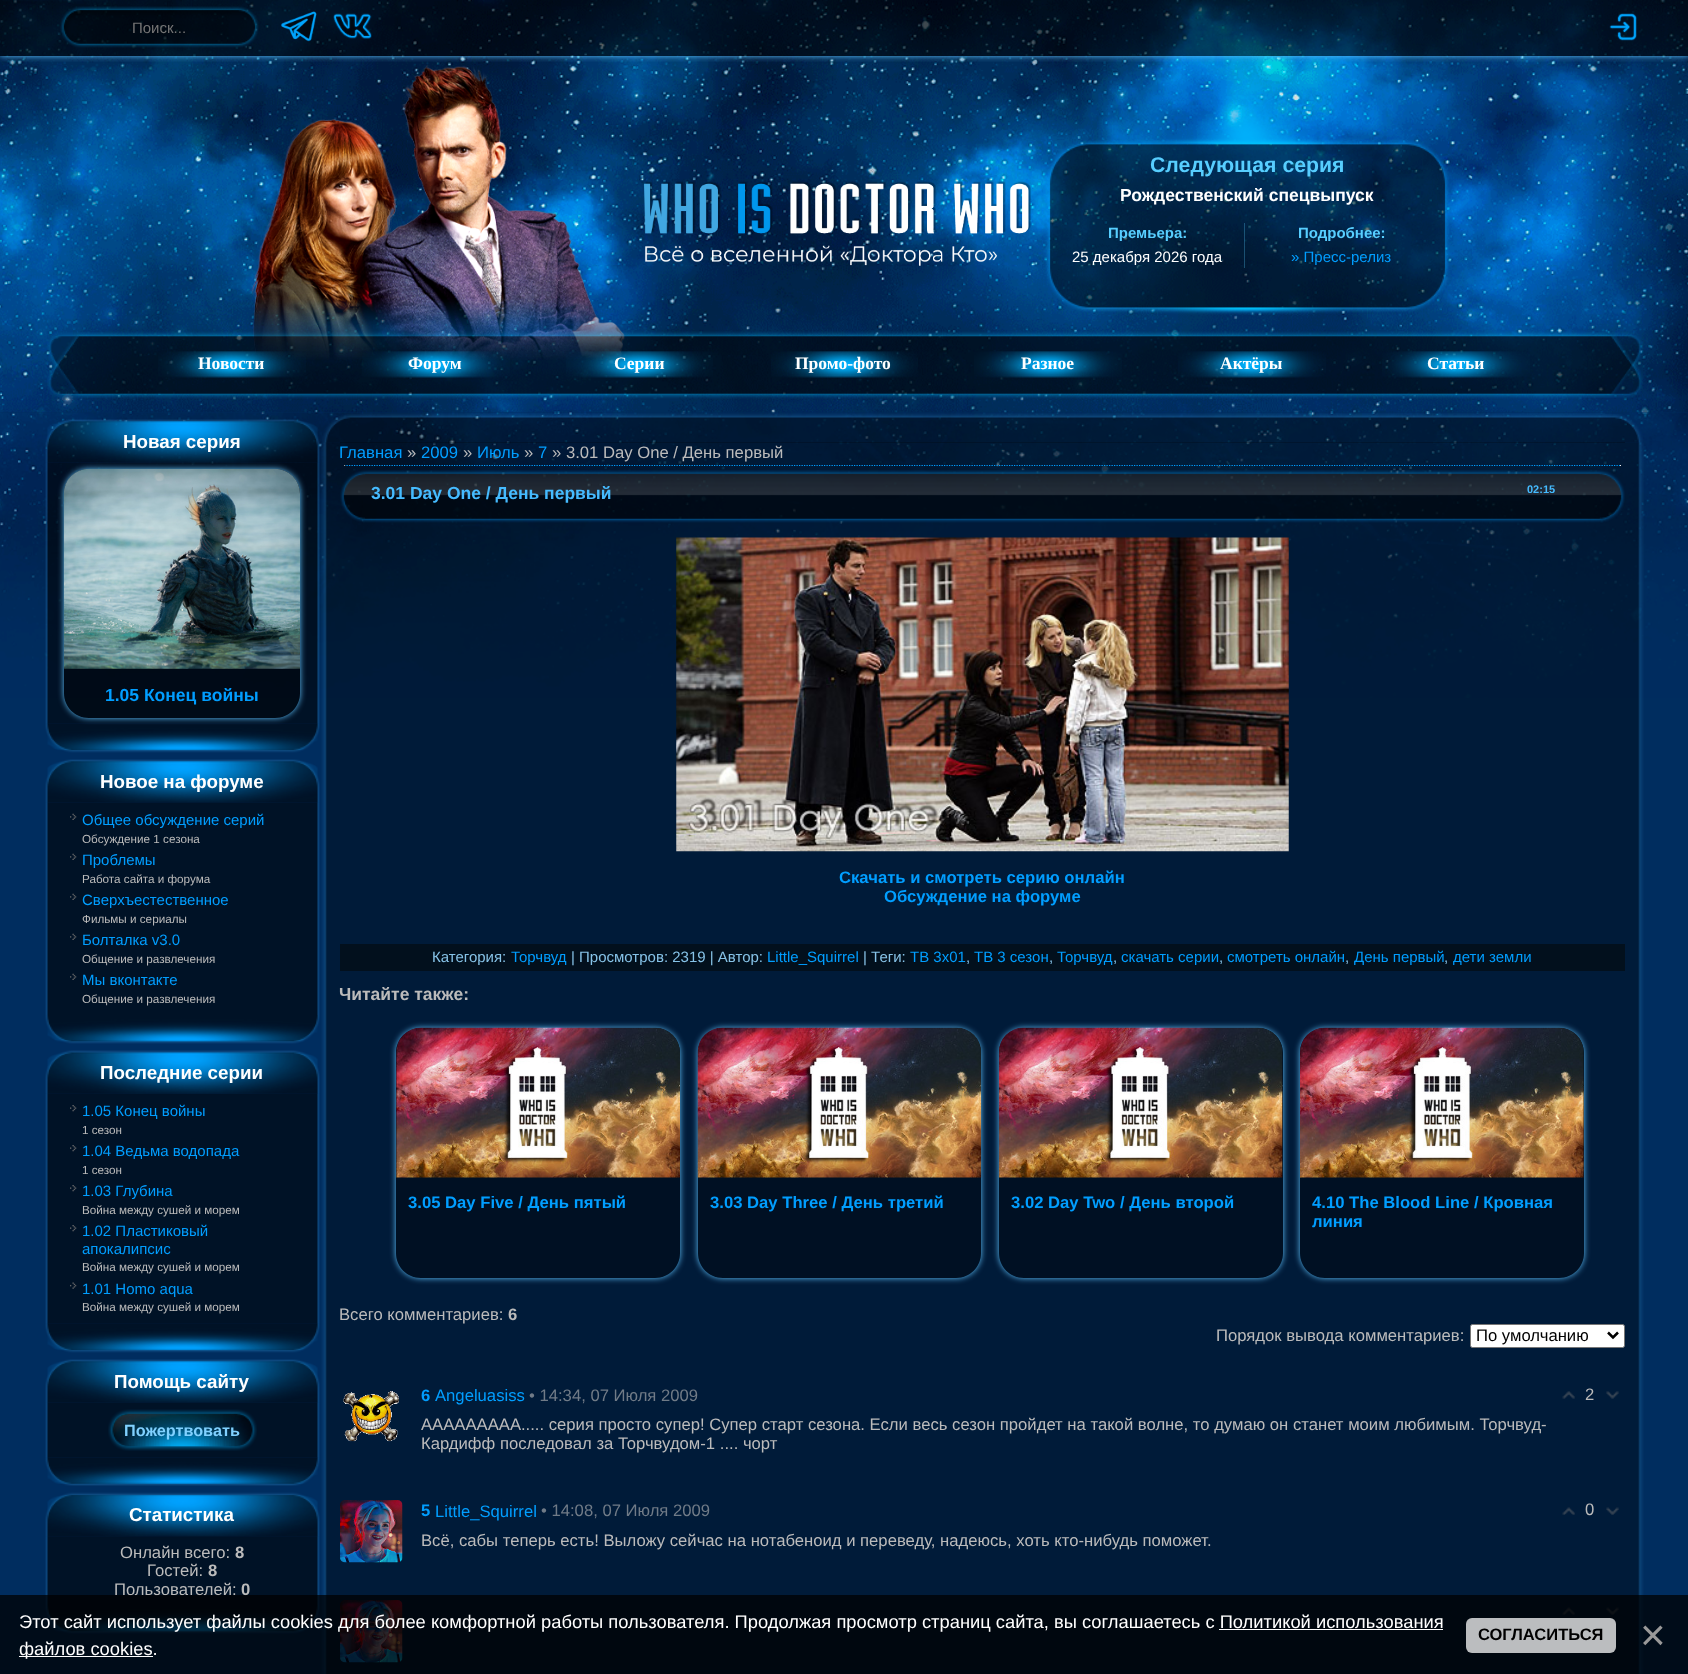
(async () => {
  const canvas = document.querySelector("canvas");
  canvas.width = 1688;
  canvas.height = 1674;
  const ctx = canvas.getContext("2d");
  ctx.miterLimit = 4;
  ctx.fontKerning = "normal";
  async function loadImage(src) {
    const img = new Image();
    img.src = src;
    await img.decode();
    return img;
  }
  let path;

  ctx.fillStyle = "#002d5f";
  ctx.fillRect(0, 0, 1688, 1674);
  ctx.drawImage(await loadImage("img/1.png"), 0, 0, 1688, 413);
  ctx.save();
  ctx.beginPath();
  ctx.rect(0, 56, 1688, 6);
  ctx.clip();
  ctx.fillStyle = "#5fc4ff";
  ctx.filter = "blur(3px)";
  ctx.beginPath();
  ctx.rect(0, 0, 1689, 56);
  ctx.fill();
  ctx.filter = "none";
  ctx.restore();
  ctx.fillStyle = "rgba(0, 0, 0, 0.56)";
  ctx.fillRect(0, 0, 1688, 56);
  ctx.drawImage(await loadImage("img/2.png"), 60, 6, 199, 42);
  ctx.drawImage(await loadImage("img/3.png"), 280, 11, 37, 31);
  ctx.drawImage(await loadImage("img/4.png"), 333, 13, 39, 26);
  ctx.drawImage(await loadImage("img/5.png"), 1609, 13, 28, 28);
  ctx.drawImage(await loadImage("img/10.png"), 105, 331, 1480, 68);
  ctx.drawImage(await loadImage("img/6.png"), 249, 65, 376, 295);
  ctx.drawImage(await loadImage("img/7.png"), 643, 181, 388, 85);
  ctx.drawImage(await loadImage("img/8.png"), 1045, 23, 405, 292);
  ctx.fillStyle = "rgba(87, 206, 255, 0.3)";
  ctx.fillRect(1244, 223, 1, 45);
  ctx.drawImage(await loadImage("img/9.png"), 47, 332, 58, 66);
  ctx.drawImage(await loadImage("img/11.png"), 158, 351, 148, 27);
  ctx.drawImage(await loadImage("img/12.png"), 362, 351, 148, 27);
  ctx.drawImage(await loadImage("img/13.png"), 566, 351, 147, 27);
  ctx.drawImage(await loadImage("img/14.png"), 771, 351, 147, 27);
  ctx.drawImage(await loadImage("img/15.png"), 974, 351, 148, 27);
  ctx.drawImage(await loadImage("img/16.png"), 1178, 351, 148, 27);
  ctx.drawImage(await loadImage("img/17.png"), 1382, 351, 148, 27);
  ctx.drawImage(await loadImage("img/18.png"), 1585, 332, 58, 66);
  ctx.drawImage(await loadImage("img/19.png"), 0, 412, 1688, 286);
  ctx.drawImage(await loadImage("img/20.png"), 45, 419, 275, 44);
  ctx.drawImage(await loadImage("img/21.png"), 45, 462, 275, 262);
  ctx.drawImage(await loadImage("img/23.png"), 45, 723, 275, 30);
  ctx.save();
  path = new Path2D("M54 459H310V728H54ZM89 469H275C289 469 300 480 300 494V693C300 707 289 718 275 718H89C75 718 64 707 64 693V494C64 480 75 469 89 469Z");
  ctx.clip(path, "evenodd");
  ctx.fillStyle = "#5fc4ff";
  ctx.filter = "blur(3px)";
  ctx.beginPath();
  ctx.roundRect(64, 469, 236, 249, 25);
  ctx.fill();
  ctx.filter = "none";
  ctx.restore();
  ctx.fillStyle = "rgba(0, 0, 0, 0.38)";
  ctx.beginPath();
  ctx.roundRect(64, 469, 236, 249, 25);
  ctx.fill();
  ctx.drawImage(await loadImage("img/22.png"), 63, 468, 237, 201);
  ctx.drawImage(await loadImage("img/24.png"), 45, 759, 275, 44);
  ctx.drawImage(await loadImage("img/25.png"), 45, 802, 275, 213);
  ctx.drawImage(await loadImage("img/26.png"), 70, 813, 7, 7);
  ctx.drawImage(await loadImage("img/26.png"), 70, 853, 7, 7);
  ctx.drawImage(await loadImage("img/26.png"), 70, 893, 7, 7);
  ctx.drawImage(await loadImage("img/26.png"), 70, 933, 7, 7);
  ctx.drawImage(await loadImage("img/26.png"), 70, 973, 7, 7);
  ctx.drawImage(await loadImage("img/27.png"), 45, 1015, 275, 29);
  ctx.drawImage(await loadImage("img/28.png"), 45, 1050, 275, 44);
  ctx.drawImage(await loadImage("img/29.png"), 45, 1093, 275, 231);
  ctx.drawImage(await loadImage("img/30.png"), 70, 1105, 7, 7);
  ctx.drawImage(await loadImage("img/30.png"), 70, 1145, 7, 7);
  ctx.drawImage(await loadImage("img/30.png"), 70, 1185, 7, 7);
  ctx.drawImage(await loadImage("img/30.png"), 70, 1225, 7, 7);
  ctx.drawImage(await loadImage("img/31.png"), 70, 1282, 7, 7);
  ctx.drawImage(await loadImage("img/23.png"), 45, 1323, 275, 30);
  ctx.drawImage(await loadImage("img/24.png"), 45, 1359, 275, 44);
  ctx.drawImage(await loadImage("img/32.png"), 45, 1402, 275, 56);
  ctx.drawImage(await loadImage("img/33.png"), 108, 1409, 149, 42);
  ctx.drawImage(await loadImage("img/34.png"), 45, 1457, 275, 29);
  ctx.drawImage(await loadImage("img/35.png"), 45, 1492, 275, 45);
  ctx.drawImage(await loadImage("img/36.png"), 45, 1536, 275, 69);
  ctx.drawImage(await loadImage("img/27.png"), 45, 1605, 275, 29);
  ctx.drawImage(await loadImage("img/37.png"), 322, 413, 38, 30);
  ctx.drawImage(await loadImage("img/38.png"), 360, 413, 1245, 30);
  ctx.drawImage(await loadImage("img/39.png"), 1605, 414, 38, 29);
  ctx.drawImage(await loadImage("img/40.png"), 321, 442, 19, 1232);
  ctx.fillStyle = "rgba(0, 0, 0, 0.4)";
  ctx.fillRect(340, 442, 1285, 1232);
  path = new Path2D("M344 465.5H1621");
  ctx.strokeStyle = "#009eff";
  ctx.lineWidth = 1.2;
  ctx.setLineDash([1.25, 1.25]);
  ctx.stroke(path);
  ctx.fillStyle = "#eeeeee";
  ctx.fillRect(1620, 465, 1, 1);
  ctx.fillStyle = "#9f9f9f";
  ctx.fillRect(344, 465, 1, 1);
  ctx.drawImage(await loadImage("img/41.png"), 340, 470, 1155, 53);
  ctx.drawImage(await loadImage("img/42.png"), 1495, 470, 130, 53);
  ctx.drawImage(await loadImage("img/43.png"), 676, 537, 613, 315);
  ctx.fillStyle = "#02101d";
  ctx.fillRect(340, 944, 1285, 27);
  ctx.save();
  path = new Path2D("M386 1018H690V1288H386ZM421 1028H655C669 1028 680 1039 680 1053V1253C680 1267 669 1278 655 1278H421C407 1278 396 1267 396 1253V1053C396 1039 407 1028 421 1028Z");
  ctx.clip(path, "evenodd");
  ctx.fillStyle = "#5fc4ff";
  ctx.filter = "blur(3px)";
  ctx.beginPath();
  ctx.roundRect(396, 1028, 284, 250, 25);
  ctx.fill();
  ctx.filter = "none";
  ctx.restore();
  ctx.fillStyle = "rgba(0, 0, 0, 0.38)";
  ctx.beginPath();
  ctx.roundRect(396, 1028, 284, 250, 25);
  ctx.fill();
  ctx.drawImage(await loadImage("img/44.png"), 396, 1027, 284, 151);
  ctx.save();
  path = new Path2D("M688 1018H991V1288H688ZM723 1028H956C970 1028 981 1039 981 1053V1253C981 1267 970 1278 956 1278H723C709 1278 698 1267 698 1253V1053C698 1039 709 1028 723 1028Z");
  ctx.clip(path, "evenodd");
  ctx.fillStyle = "#5fc4ff";
  ctx.filter = "blur(3px)";
  ctx.beginPath();
  ctx.roundRect(698, 1028, 283, 250, 25);
  ctx.fill();
  ctx.filter = "none";
  ctx.restore();
  ctx.beginPath();
  ctx.roundRect(698, 1028, 283, 250, 25);
  ctx.fill();
  ctx.drawImage(await loadImage("img/45.png"), 697, 1027, 285, 151);
  ctx.save();
  path = new Path2D("M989 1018H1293V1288H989ZM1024 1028H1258C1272 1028 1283 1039 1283 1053V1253C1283 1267 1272 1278 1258 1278H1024C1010 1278 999 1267 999 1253V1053C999 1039 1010 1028 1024 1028Z");
  ctx.clip(path, "evenodd");
  ctx.fillStyle = "#5fc4ff";
  ctx.filter = "blur(3px)";
  ctx.beginPath();
  ctx.roundRect(999, 1028, 284, 250, 25);
  ctx.fill();
  ctx.filter = "none";
  ctx.restore();
  ctx.beginPath();
  ctx.roundRect(999, 1028, 284, 250, 25);
  ctx.fill();
  ctx.drawImage(await loadImage("img/46.png"), 998, 1027, 285, 151);
  ctx.save();
  path = new Path2D("M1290 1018H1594V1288H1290ZM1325 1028H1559C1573 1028 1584 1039 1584 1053V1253C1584 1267 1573 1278 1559 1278H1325C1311 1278 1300 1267 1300 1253V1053C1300 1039 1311 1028 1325 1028Z");
  ctx.clip(path, "evenodd");
  ctx.fillStyle = "#5fc4ff";
  ctx.filter = "blur(3px)";
  ctx.beginPath();
  ctx.roundRect(1300, 1028, 284, 250, 25);
  ctx.fill();
  ctx.filter = "none";
  ctx.restore();
  ctx.beginPath();
  ctx.roundRect(1300, 1028, 284, 250, 25);
  ctx.fill();
  ctx.drawImage(await loadImage("img/47.png"), 1300, 1027, 284, 151);
  ctx.fillStyle = "#ffffff";
  ctx.beginPath();
  ctx.roundRect(1470.5, 1324.5, 154, 23, 2);
  ctx.fill();
  ctx.strokeStyle = "#767676";
  ctx.lineWidth = 1;
  ctx.setLineDash([]);
  ctx.stroke();
  path = new Path2D("M1608 1332.5L1613 1337.5L1618 1332.5");
  ctx.strokeStyle = "#000000";
  ctx.lineWidth = 2.5;
  ctx.stroke(path);
  ctx.drawImage(await loadImage("img/48.png"), 343, 1391, 56, 51);
  ctx.drawImage(await loadImage("img/49.png"), 1562, 1391, 13, 8);
  ctx.drawImage(await loadImage("img/50.png"), 1606, 1391, 13, 8);
  ctx.drawImage(await loadImage("img/51.png"), 340, 1500, 63, 63);
  ctx.drawImage(await loadImage("img/52.png"), 1562, 1507, 13, 8);
  ctx.drawImage(await loadImage("img/53.png"), 1606, 1507, 13, 8);
  ctx.drawImage(await loadImage("img/54.png"), 340, 1600, 63, 63);
  ctx.drawImage(await loadImage("img/52.png"), 1562, 1607, 13, 8);
  ctx.drawImage(await loadImage("img/53.png"), 1606, 1607, 13, 8);
  ctx.drawImage(await loadImage("img/55.png"), 1625, 442, 19, 1232);
  ctx.font = "15px Liberation Sans";
  ctx.fillStyle = "#757575";
  ctx.fillText("Поиск...", 132, 33);
  ctx.font = "bold 21.25px Liberation Sans";
  ctx.fillStyle = "#57ceff";
  ctx.fillText("Следующая серия", 1150, 172);
  ctx.font = "bold 17.5px Liberation Sans";
  ctx.fillStyle = "#ffffff";
  ctx.fillText("Рождественский спецвыпуск", 1120, 201);
  ctx.font = "bold 15px Liberation Sans";
  ctx.fillStyle = "#57ceff";
  ctx.fillText("Премьера:", 1108, 238);
  ctx.font = "15px Liberation Sans";
  ctx.fillStyle = "#ffffff";
  ctx.fillText("25 декабря 2026 года", 1072, 262);
  ctx.font = "bold 15px Liberation Sans";
  ctx.fillStyle = "#57ceff";
  ctx.fillText("Подробнее:", 1298, 238);
  ctx.font = "15px Liberation Sans";
  ctx.fillStyle = "#009eff";
  ctx.fillText("» Пресс-релиз", 1291, 262);
  ctx.font = "bold 17.5px Liberation Serif";
  ctx.fillStyle = "#ffffff";
  for (const [text, x, y] of [
    ["Новости", 198, 369],
    ["Форум", 408, 369],
    ["Серии", 614, 369],
    ["Промо-фото", 795, 369],
    ["Разное", 1021, 369],
    ["Актёры", 1220, 369],
    ["Статьи", 1427, 369],
  ]) {
    ctx.fillText(text, x, y);
  }
  ctx.font = "bold 18.75px Liberation Sans";
  ctx.fillText("Новая серия", 123, 448);
  ctx.font = "bold 17.5px Liberation Sans";
  ctx.fillStyle = "#009eff";
  ctx.fillText("1.05 Конец войны", 105, 701);
  ctx.font = "bold 18.75px Liberation Sans";
  ctx.fillStyle = "#ffffff";
  ctx.fillText("Новое на форуме", 100, 788);
  ctx.font = "15px Liberation Sans";
  ctx.fillStyle = "#009eff";
  ctx.fillText("Общее обсуждение серий", 82, 825);
  ctx.font = "11.7px Liberation Sans";
  ctx.fillStyle = "#bbbbbb";
  ctx.fillText("Обсуждение 1 сезона", 82, 843);
  ctx.font = "15px Liberation Sans";
  ctx.fillStyle = "#009eff";
  ctx.fillText("Проблемы", 82, 865);
  ctx.font = "11.7px Liberation Sans";
  ctx.fillStyle = "#bbbbbb";
  ctx.fillText("Работа сайта и форума", 82, 883);
  ctx.font = "15px Liberation Sans";
  ctx.fillStyle = "#009eff";
  ctx.fillText("Сверхъестественное", 82, 905);
  ctx.font = "11.7px Liberation Sans";
  ctx.fillStyle = "#bbbbbb";
  ctx.fillText("Фильмы и сериалы", 82, 923);
  ctx.font = "15px Liberation Sans";
  ctx.fillStyle = "#009eff";
  ctx.fillText("Болталка v3.0", 82, 945);
  ctx.font = "11.7px Liberation Sans";
  ctx.fillStyle = "#bbbbbb";
  ctx.fillText("Общение и развлечения", 82, 963);
  ctx.font = "15px Liberation Sans";
  ctx.fillStyle = "#009eff";
  ctx.fillText("Мы вконтакте", 82, 985);
  ctx.font = "11.7px Liberation Sans";
  ctx.fillStyle = "#bbbbbb";
  ctx.fillText("Общение и развлечения", 82, 1003);
  ctx.font = "bold 18.75px Liberation Sans";
  ctx.fillStyle = "#ffffff";
  ctx.fillText("Последние серии", 100, 1079);
  ctx.font = "15px Liberation Sans";
  ctx.fillStyle = "#009eff";
  ctx.fillText("1.05 Конец войны", 82, 1116);
  ctx.font = "11.7px Liberation Sans";
  ctx.fillStyle = "#bbbbbb";
  ctx.fillText("1 сезон", 82, 1134);
  ctx.font = "15px Liberation Sans";
  ctx.fillStyle = "#009eff";
  ctx.fillText("1.04 Ведьма водопада", 82, 1156);
  ctx.font = "11.7px Liberation Sans";
  ctx.fillStyle = "#bbbbbb";
  ctx.fillText("1 сезон", 82, 1174);
  ctx.font = "15px Liberation Sans";
  ctx.fillStyle = "#009eff";
  ctx.fillText("1.03 Глубина", 82, 1196);
  ctx.font = "11.7px Liberation Sans";
  ctx.fillStyle = "#bbbbbb";
  ctx.fillText("Война между сушей и морем", 82, 1214);
  ctx.font = "15px Liberation Sans";
  ctx.fillStyle = "#009eff";
  ctx.fillText("1.02 Пластиковый", 82, 1236);
  ctx.fillText("апокалипсис", 82, 1254);
  ctx.font = "11.7px Liberation Sans";
  ctx.fillStyle = "#bbbbbb";
  ctx.fillText("Война между сушей и морем", 82, 1271);
  ctx.font = "15px Liberation Sans";
  ctx.fillStyle = "#009eff";
  ctx.fillText("1.01 Homo aqua", 82, 1294);
  ctx.font = "11.7px Liberation Sans";
  ctx.fillStyle = "#bbbbbb";
  ctx.fillText("Война между сушей и морем", 82, 1311);
  ctx.font = "bold 18.75px Liberation Sans";
  ctx.fillStyle = "#ffffff";
  ctx.fillText("Помощь сайту", 114, 1388);
  ctx.font = "bold 16.25px Liberation Sans";
  ctx.fillStyle = "#80d1ff";
  ctx.fillText("Пожертвовать", 124, 1436);
  ctx.font = "bold 18.75px Liberation Sans";
  ctx.fillStyle = "#ffffff";
  ctx.fillText("Статистика", 129, 1521);
  ctx.font = "16.67px Liberation Sans";
  ctx.fillStyle = "#bbbbbb";
  ctx.fillText("Онлайн всего:", 120, 1558);
  ctx.font = "bold 16.67px Liberation Sans";
  ctx.fillText("8", 235, 1558);
  ctx.font = "16.67px Liberation Sans";
  ctx.fillText("Гостей:", 147, 1576);
  ctx.font = "bold 16.67px Liberation Sans";
  ctx.fillText("8", 208, 1576);
  ctx.font = "16.67px Liberation Sans";
  ctx.fillText("Пользователей:", 114, 1595);
  ctx.font = "bold 16.67px Liberation Sans";
  ctx.fillText("0", 241, 1595);
  ctx.font = "16.67px Liberation Sans";
  ctx.fillStyle = "#009eff";
  ctx.fillText("Главная", 339, 458);
  ctx.fillStyle = "#bbbbbb";
  ctx.fillText("»", 407, 458);
  ctx.fillStyle = "#009eff";
  ctx.fillText("2009", 421, 458);
  ctx.fillStyle = "#bbbbbb";
  ctx.fillText("»", 463, 458);
  ctx.fillStyle = "#009eff";
  ctx.fillText("Июль", 477, 458);
  ctx.fillStyle = "#bbbbbb";
  ctx.fillText("»", 524, 458);
  ctx.fillStyle = "#009eff";
  ctx.fillText("7", 538, 458);
  ctx.fillStyle = "#bbbbbb";
  ctx.fillText("» 3.01 Day One / День первый", 552, 458);
  ctx.font = "bold 17.5px Liberation Sans";
  ctx.fillStyle = "#45bbff";
  ctx.fillText("3.01 Day One / День первый", 371, 499);
  ctx.font = "bold 11px Liberation Sans";
  ctx.fillText("02:15", 1527, 493);
  ctx.font = "bold 16.67px Liberation Sans";
  ctx.fillStyle = "#009eff";
  ctx.fillText("Скачать и смотреть серию онлайн", 839, 883);
  ctx.fillText("Обсуждение на форуме", 884, 902);
  ctx.font = "15px Liberation Sans";
  ctx.fillStyle = "#87c3e8";
  ctx.fillText("Категория:", 432, 962);
  ctx.fillStyle = "#009eff";
  ctx.fillText("Торчвуд", 511, 962);
  ctx.fillStyle = "#87c3e8";
  ctx.fillText("| Просмотров: 2319 | Автор:", 571, 962);
  ctx.fillStyle = "#009eff";
  ctx.fillText("Little_Squirrel", 767, 962);
  ctx.fillStyle = "#87c3e8";
  ctx.fillText("| Теги:", 863, 962);
  ctx.fillStyle = "#009eff";
  ctx.fillText("ТВ 3x01", 910, 962);
  ctx.fillStyle = "#87c3e8";
  ctx.fillText(",", 966, 962);
  ctx.fillStyle = "#009eff";
  ctx.fillText("ТВ 3 сезон", 974, 962);
  ctx.fillStyle = "#87c3e8";
  ctx.fillText(",", 1049, 962);
  ctx.fillStyle = "#009eff";
  ctx.fillText("Торчвуд", 1057, 962);
  ctx.fillStyle = "#87c3e8";
  ctx.fillText(",", 1113, 962);
  ctx.fillStyle = "#009eff";
  ctx.fillText("скачать серии", 1121, 962);
  ctx.fillStyle = "#87c3e8";
  ctx.fillText(",", 1219, 962);
  ctx.fillStyle = "#009eff";
  ctx.fillText("смотреть онлайн", 1227, 962);
  ctx.fillStyle = "#87c3e8";
  ctx.fillText(",", 1345, 962);
  ctx.fillStyle = "#009eff";
  ctx.fillText("День первый", 1354, 962);
  ctx.fillStyle = "#87c3e8";
  ctx.fillText(",", 1444, 962);
  ctx.fillStyle = "#009eff";
  ctx.fillText("дети земли", 1453, 962);
  ctx.font = "bold 17.5px Liberation Sans";
  ctx.fillStyle = "#bbbbbb";
  ctx.fillText("Читайте также:", 339, 1000);
  ctx.font = "bold 16.67px Liberation Sans";
  ctx.fillStyle = "#009eff";
  for (const [text, x, y] of [
    ["3.05 Day Five / День пятый", 408, 1208],
    ["3.03 Day Three / День третий", 710, 1208],
    ["3.02 Day Two / День второй", 1011, 1208],
    ["4.10 The Blood Line / Кровная", 1312, 1208],
    ["линия", 1312, 1227],
  ]) {
    ctx.fillText(text, x, y);
  }
  ctx.font = "16.67px Liberation Sans";
  ctx.fillStyle = "#bbbbbb";
  ctx.fillText("Всего комментариев:", 339, 1320);
  ctx.font = "bold 16.67px Liberation Sans";
  ctx.fillText("6", 508, 1320);
  ctx.font = "16.67px Liberation Sans";
  ctx.fillText("Порядок вывода комментариев:", 1216, 1341);
  ctx.fillStyle = "#000000";
  ctx.fillText("По умолчанию", 1476, 1341);
  ctx.font = "bold 16.67px Liberation Sans";
  ctx.fillStyle = "#009eff";
  ctx.fillText("6", 421, 1401);
  ctx.font = "16.67px Liberation Sans";
  ctx.fillText("Angeluasiss", 435, 1401);
  ctx.fillStyle = "#707b87";
  ctx.fillText("• 14:34, 07 Июля 2009", 529, 1401);
  ctx.fillStyle = "#bbbbbb";
  for (const [text, x, y] of [
    ["2", 1585, 1400],
    ["ААААААААА..... серия просто супер! Супер старт сезона. Если весь сезон пройдет на такой волне, то думаю он станет моим любимым. Торчвуд-", 421, 1430],
    ["Кардифф последовал за Торчвудом-1 .... чорт", 421, 1449],
  ]) {
    ctx.fillText(text, x, y);
  }
  ctx.font = "bold 16.67px Liberation Sans";
  ctx.fillStyle = "#009eff";
  ctx.fillText("5", 421, 1516);
  ctx.font = "16.67px Liberation Sans";
  ctx.fillText("Little_Squirrel", 435, 1517);
  ctx.fillStyle = "#707b87";
  ctx.fillText("• 14:08, 07 Июля 2009", 541, 1516);
  ctx.fillStyle = "#bbbbbb";
  ctx.fillText("0", 1585, 1515);
  ctx.fillText("Всё, сабы теперь есть! Выложу сейчас на нотабеноид и переведу, надеюсь, хоть кто-нибудь поможет.", 421, 1546);
  ctx.fillStyle = "rgba(0, 0, 0, 0.73)";
  ctx.fillRect(0, 1595, 1688, 79);
  ctx.font = "18.33px Liberation Sans";
  ctx.fillStyle = "#ffffff";
  ctx.fillText("Этот сайт использует файлы cookies для более комфортной работы пользователя. Продолжая просмотр страниц сайта, вы соглашаетесь с Политикой использования", 19, 1628);
  ctx.fillRect(1219, 1629, 224, 1);
  ctx.fillRect(19, 1656, 134, 1);
  ctx.fillText("файлов cookies.", 19, 1655);
  ctx.fillStyle = "#bbbdbf";
  ctx.beginPath();
  ctx.roundRect(1466, 1618, 150, 35, 6);
  ctx.fill();
  ctx.font = "bold 16.5px Liberation Sans";
  ctx.fillStyle = "#000000";
  ctx.fillText("СОГЛАСИТЬСЯ", 1478, 1640);
  ctx.font = "44px Liberation Sans";
  ctx.fillStyle = "#999999";
  ctx.fillText("×", 1640, 1650);
})();
